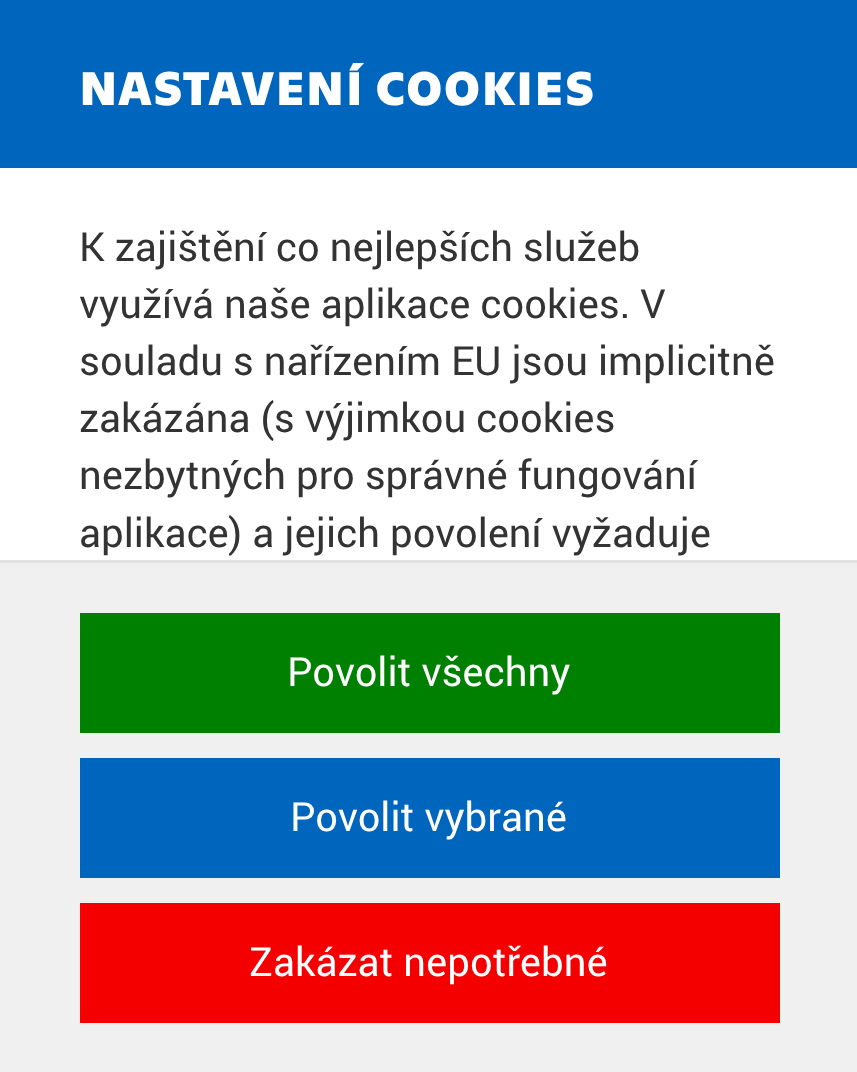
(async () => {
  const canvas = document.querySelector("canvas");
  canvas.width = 857;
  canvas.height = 1072;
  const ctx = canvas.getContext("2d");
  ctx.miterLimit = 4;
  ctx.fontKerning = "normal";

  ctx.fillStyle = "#ffffff";
  ctx.fillRect(0, 0, 857, 1072);
  for (const [x, y, w, h, color] of [
    [0, 0, 857, 168, "#0065bd"],
    [0, 563, 857, 509, "#f0f0f0"],
    [0, 560, 857, 3, "#e1e1e1"],
    [80, 613, 700, 120, "#008000"],
    [80, 758, 700, 120, "#0065bd"],
    [80, 903, 700, 120, "#f50000"],
  ]) {
    ctx.fillStyle = color;
    ctx.fillRect(x, y, w, h);
  }
  ctx.letterSpacing = "1.25px";
  ctx.font = "bold 48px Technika";
  ctx.fillStyle = "#ffffff";
  ctx.fillText("NASTAVENÍ COOKIES", 79, 105);
  ctx.letterSpacing = "0px";
  ctx.font = "40px Roboto";
  ctx.fillStyle = "#333333";
  for (const [text, x, y] of [
    ["K zajištění co nejlepších služeb", 79, 261],
    ["využívá naše aplikace cookies. V", 79, 318],
    ["souladu s nařízením EU jsou implicitně", 79, 375],
    ["zakázána (s výjimkou cookies", 79, 432],
    ["nezbytných pro správné fungování", 79, 489],
    ["aplikace) a jejich povolení vyžaduje", 79, 547],
  ]) {
    ctx.fillText(text, x, y);
  }
  ctx.fillStyle = "#ffffff";
  for (const [text, x, y] of [
    ["Povolit všechny", 287, 686],
    ["Povolit vybrané", 290, 831],
    ["Zakázat nepotřebné", 249, 976],
  ]) {
    ctx.fillText(text, x, y);
  }
})();
